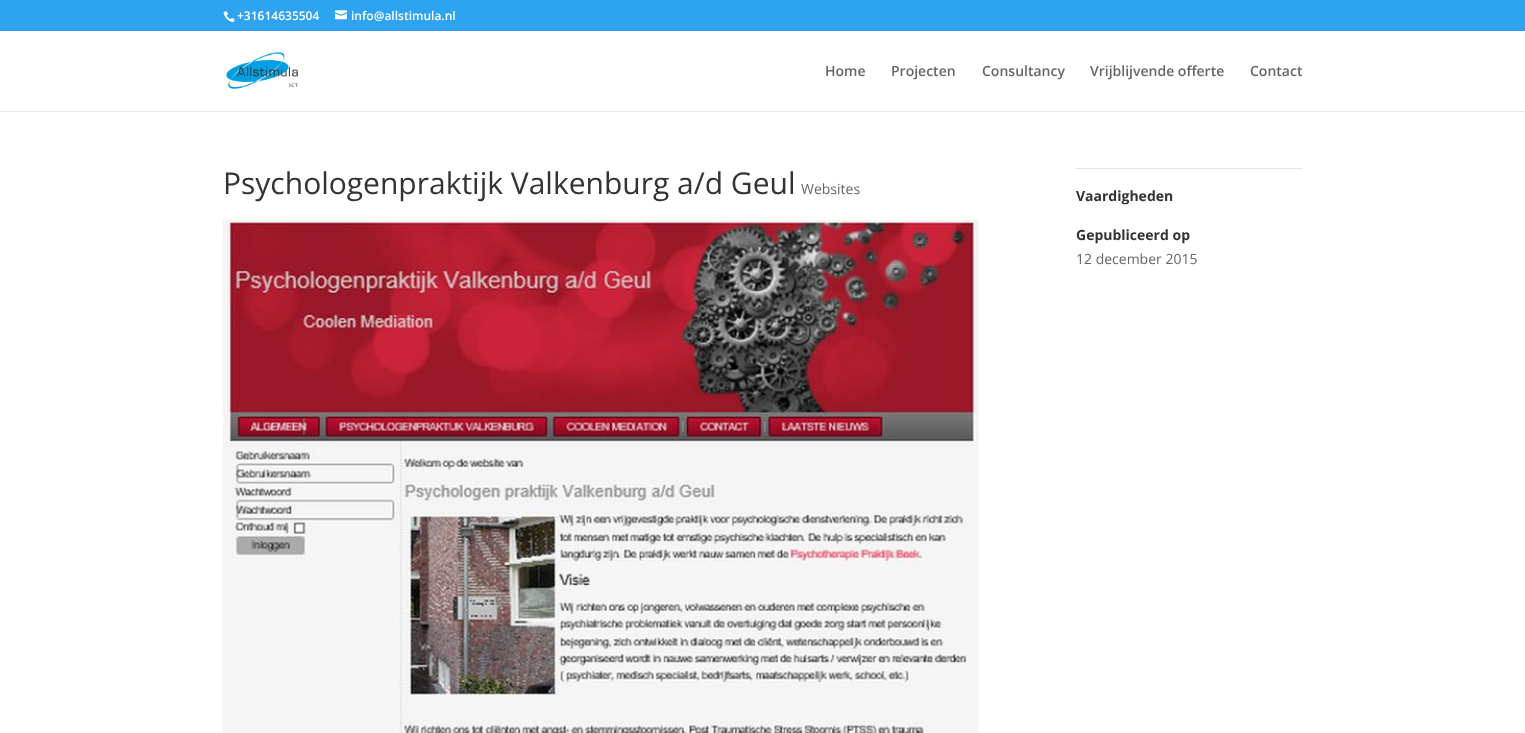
(async () => {
  const canvas = document.querySelector("canvas");
  canvas.width = 1525;
  canvas.height = 733;
  const ctx = canvas.getContext("2d");
  ctx.miterLimit = 4;
  ctx.fontKerning = "normal";
  async function loadImage(src) {
    const img = new Image();
    img.src = src;
    await img.decode();
    return img;
  }

  ctx.fillStyle = "#ffffff";
  ctx.fillRect(0, 0, 1525, 733);
  ctx.fillStyle = "#2ea3f2";
  ctx.fillRect(0, 0, 1525, 31);
  ctx.drawImage(await loadImage("img/1.png"), 223, 11, 12, 12);
  ctx.drawImage(await loadImage("img/2.png"), 335, 10, 12, 10);
  ctx.fillStyle = "#e6e6e6";
  ctx.fillRect(0, 111, 1525, 1);
  ctx.drawImage(await loadImage("img/3.png"), 226, 52, 72, 37);
  ctx.drawImage(await loadImage("img/4.png"), 223, 220, 756, 513);
  ctx.fillStyle = "#e2e2e2";
  ctx.fillRect(1076, 168, 226, 1);
  ctx.font = "600 12px Open Sans";
  ctx.fillStyle = "#ffffff";
  ctx.fillText("+31614635504", 237, 20);
  ctx.fillText("info@allstimula.nl", 351, 20);
  ctx.font = "600 14px Open Sans";
  ctx.fillStyle = "#666666";
  for (const [text, x, y] of [
    ["Home", 825, 76],
    ["Projecten", 891, 76],
    ["Consultancy", 982, 76],
    ["Vrijblijvende offerte", 1090, 76],
    ["Contact", 1250, 76],
  ]) {
    ctx.fillText(text, x, y);
  }
  ctx.font = "30px Open Sans";
  ctx.fillStyle = "#333333";
  ctx.fillText("Psychologenpraktijk Valkenburg a/d Geul", 223, 194);
  ctx.font = "14px Open Sans";
  ctx.fillStyle = "#666666";
  ctx.fillText("Websites", 801, 194);
  ctx.font = "bold 14px Open Sans";
  ctx.fillStyle = "#333333";
  ctx.fillText("Vaardigheden", 1076, 201);
  ctx.fillText("Gepubliceerd op", 1076, 240);
  ctx.font = "14px Open Sans";
  ctx.fillStyle = "#666666";
  ctx.fillText("12 december 2015", 1076, 264);
})();
